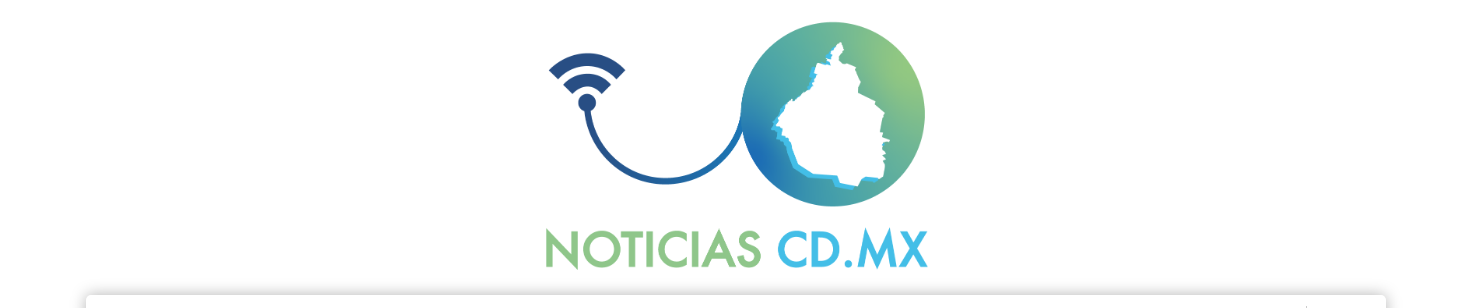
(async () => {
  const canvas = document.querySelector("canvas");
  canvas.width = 1471;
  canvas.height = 308;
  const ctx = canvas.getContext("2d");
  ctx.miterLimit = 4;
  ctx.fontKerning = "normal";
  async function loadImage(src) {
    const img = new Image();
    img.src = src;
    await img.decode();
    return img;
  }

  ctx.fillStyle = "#ffffff";
  ctx.fillRect(0, 0, 1471, 308);
  ctx.drawImage(await loadImage("img/1.png"), 546, 21, 382, 249);
  ctx.fillStyle = "rgba(0, 0, 0, 0.3)";
  ctx.filter = "blur(7.5px)";
  ctx.beginPath();
  ctx.roundRect(86, 295, 1300, 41, 5);
  ctx.fill();
  ctx.filter = "none";
  ctx.fillStyle = "#ffffff";
  ctx.beginPath();
  ctx.roundRect(86, 295, 1300, 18, 5);
  ctx.fill();
  ctx.fillStyle = "#cccccc";
  ctx.fillRect(1306, 306, 1, 2);
})();
